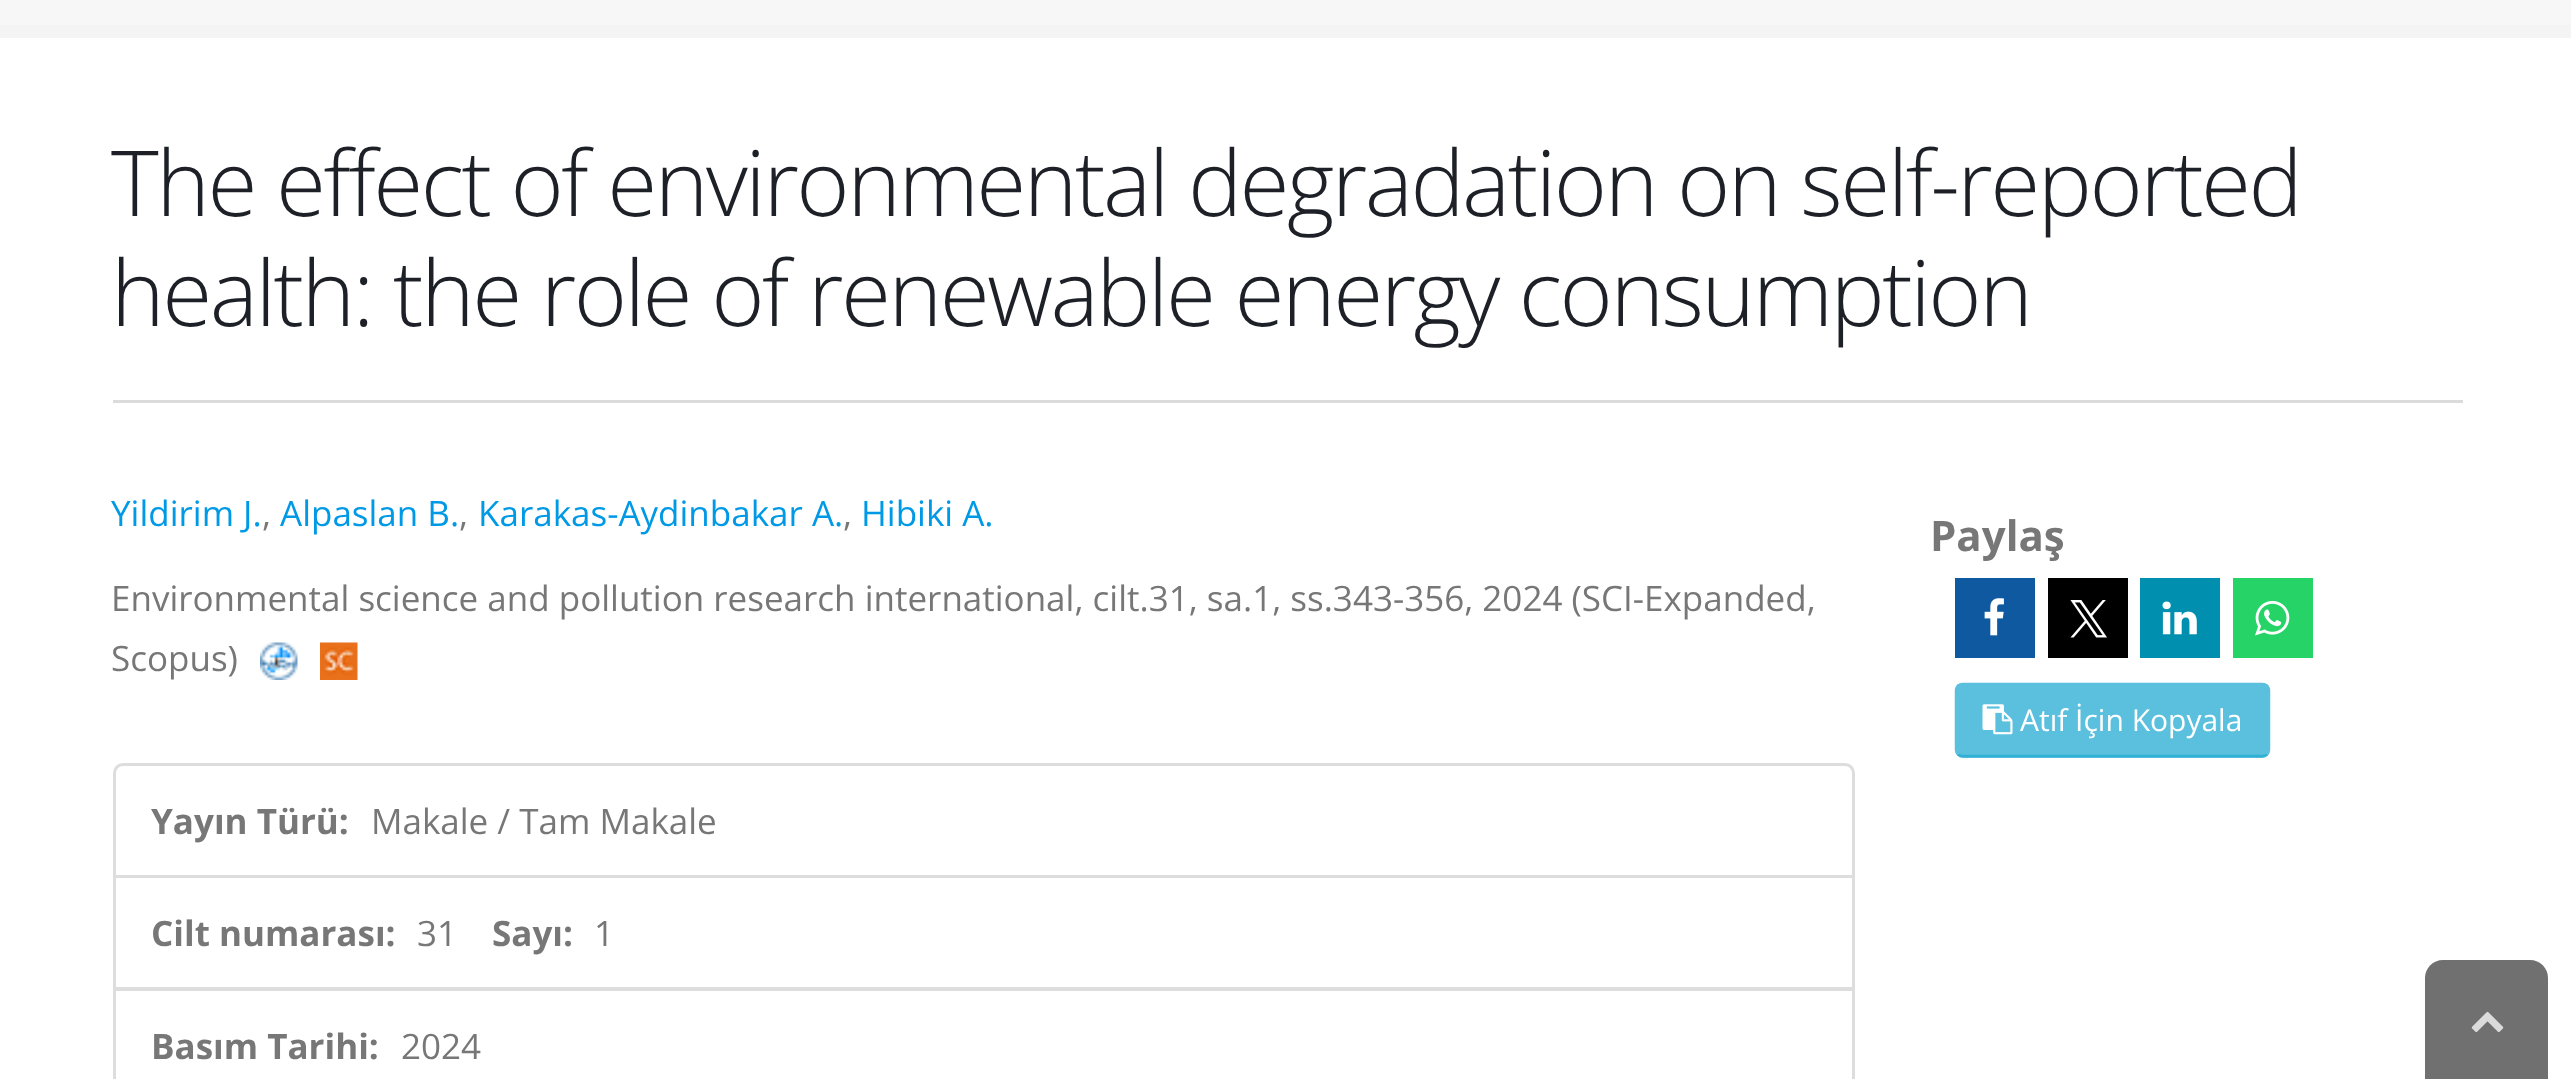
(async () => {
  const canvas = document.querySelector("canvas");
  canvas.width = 2571;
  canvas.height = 1079;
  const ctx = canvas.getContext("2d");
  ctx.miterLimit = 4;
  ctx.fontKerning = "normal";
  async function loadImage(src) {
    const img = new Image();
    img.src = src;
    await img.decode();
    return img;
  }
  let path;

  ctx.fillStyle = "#ffffff";
  ctx.fillRect(0, 0, 2571, 1079);
  for (const [x, y, w, h, color] of [
    [0, 0, 2571, 25, "#f7f7f7"],
    [0, 25, 2571, 13, "#f4f4f4"],
    [113, 400, 2350, 3, "#dbdbdb"],
  ]) {
    ctx.fillStyle = color;
    ctx.fillRect(x, y, w, h);
  }
  ctx.drawImage(await loadImage("img/1.png"), 260, 642, 38, 38);
  ctx.drawImage(await loadImage("img/2.png"), 320, 642, 38, 38);
  ctx.beginPath();
  ctx.roundRect(114.5, 764.5, 1739, 112, [8.5, 8.5, 0, 0]);
  ctx.strokeStyle = "#dddddd";
  ctx.lineWidth = 3;
  ctx.stroke();
  ctx.strokeRect(114.5, 876.5, 1739, 112);
  ctx.strokeRect(114.5, 989.5, 1739, 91);
  ctx.fillStyle = "#0e59a0";
  ctx.fillRect(1955, 578, 80, 80);
  ctx.drawImage(await loadImage("img/3.png"), 1984, 598, 20, 38);
  ctx.fillStyle = "#000000";
  ctx.fillRect(2048, 578, 80, 80);
  ctx.drawImage(await loadImage("img/4.png"), 2070, 600, 37, 38);
  ctx.fillStyle = "#018faf";
  ctx.fillRect(2140, 578, 80, 80);
  ctx.drawImage(await loadImage("img/5.png"), 2162, 601, 35, 34);
  ctx.fillStyle = "#25d366";
  ctx.fillRect(2233, 578, 80, 80);
  ctx.drawImage(await loadImage("img/6.png"), 2255, 600, 35, 36);
  ctx.fillStyle = "#5bc0de";
  ctx.beginPath();
  ctx.roundRect(1955, 683, 315, 75, 8);
  ctx.fill();
  path = new Path2D("M2267 754.5C2265.5 755.5 2264 756 2262.5 756H1962.5C1961 756 1959.5 755.5 1958 754.5");
  ctx.strokeStyle = "#31b0d5";
  ctx.lineWidth = 2.5;
  ctx.stroke(path);
  path = new Path2D("M1958 754.5C1957 753 1956 751.5 1956 750V690C1956 688.5 1957 687 1958 685.5C1959.5 684.5 1961 684 1962.5 684H2262.5C2264 684 2265.5 684.5 2267 685.5C2268 687 2269 688.5 2269 690V750C2269 751.5 2268 753 2267 754.5");
  ctx.strokeStyle = "#5bc0de";
  ctx.stroke(path);
  ctx.drawImage(await loadImage("img/7.png"), 1982, 704, 31, 31);
  ctx.fillStyle = "#707070";
  path = new Path2D("M2443 960H2530C2540 960 2548 968 2548 978V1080H2425V978C2425 968 2433 960 2443 960Z");
  ctx.fill(path);
  ctx.drawImage(await loadImage("img/8.png"), 2471, 1011, 33, 21);
  ctx.letterSpacing = "-2.5px";
  ctx.font = "300 91px Open Sans";
  ctx.fillStyle = "#1d2127";
  ctx.fillText("The effect of environmental degradation on self-reported", 111, 216);
  ctx.fillText("health: the role of renewable energy consumption", 111, 326);
  ctx.letterSpacing = "0px";
  ctx.font = "35px Open Sans";
  ctx.fillStyle = "#0099e6";
  ctx.fillText("Yildirim J.", 111, 526);
  ctx.fillStyle = "#777777";
  ctx.fillText(",", 262, 526);
  ctx.fillStyle = "#0099e6";
  ctx.fillText("Alpaslan B.", 280, 526);
  ctx.fillStyle = "#777777";
  ctx.fillText(",", 459, 526);
  ctx.fillStyle = "#0099e6";
  ctx.fillText("Karakas-Aydinbakar A.", 478, 526);
  ctx.fillStyle = "#777777";
  ctx.fillText(",", 843, 526);
  ctx.fillStyle = "#0099e6";
  ctx.fillText("Hibiki A.", 861, 526);
  ctx.fillStyle = "#777777";
  ctx.fillText("Environmental science and pollution research international, cilt.31, sa.1, ss.343-356, 2024 (SCI-Expanded,", 111, 611);
  ctx.fillText("Scopus)", 111, 671);
  ctx.font = "bold 35px Open Sans";
  ctx.fillText("Yayın Türü:", 151, 834);
  ctx.font = "35px Open Sans";
  ctx.fillText("Makale / Tam Makale", 371, 834);
  ctx.font = "bold 35px Open Sans";
  ctx.fillText("Cilt numarası:", 151, 946);
  ctx.font = "35px Open Sans";
  ctx.fillText("31", 417, 946);
  ctx.font = "bold 35px Open Sans";
  ctx.fillText("Sayı:", 492, 946);
  ctx.font = "35px Open Sans";
  ctx.fillText("1", 594, 946);
  ctx.font = "bold 35px Open Sans";
  ctx.fillText("Basım Tarihi:", 151, 1059);
  ctx.font = "35px Open Sans";
  ctx.fillText("2024", 401, 1059);
  ctx.font = "bold 42px Open Sans";
  ctx.fillText("Paylaş", 1930, 551);
  ctx.font = "30px Open Sans";
  ctx.fillStyle = "#ffffff";
  ctx.fillText("Atıf İçin Kopyala", 2020, 731);
})();
